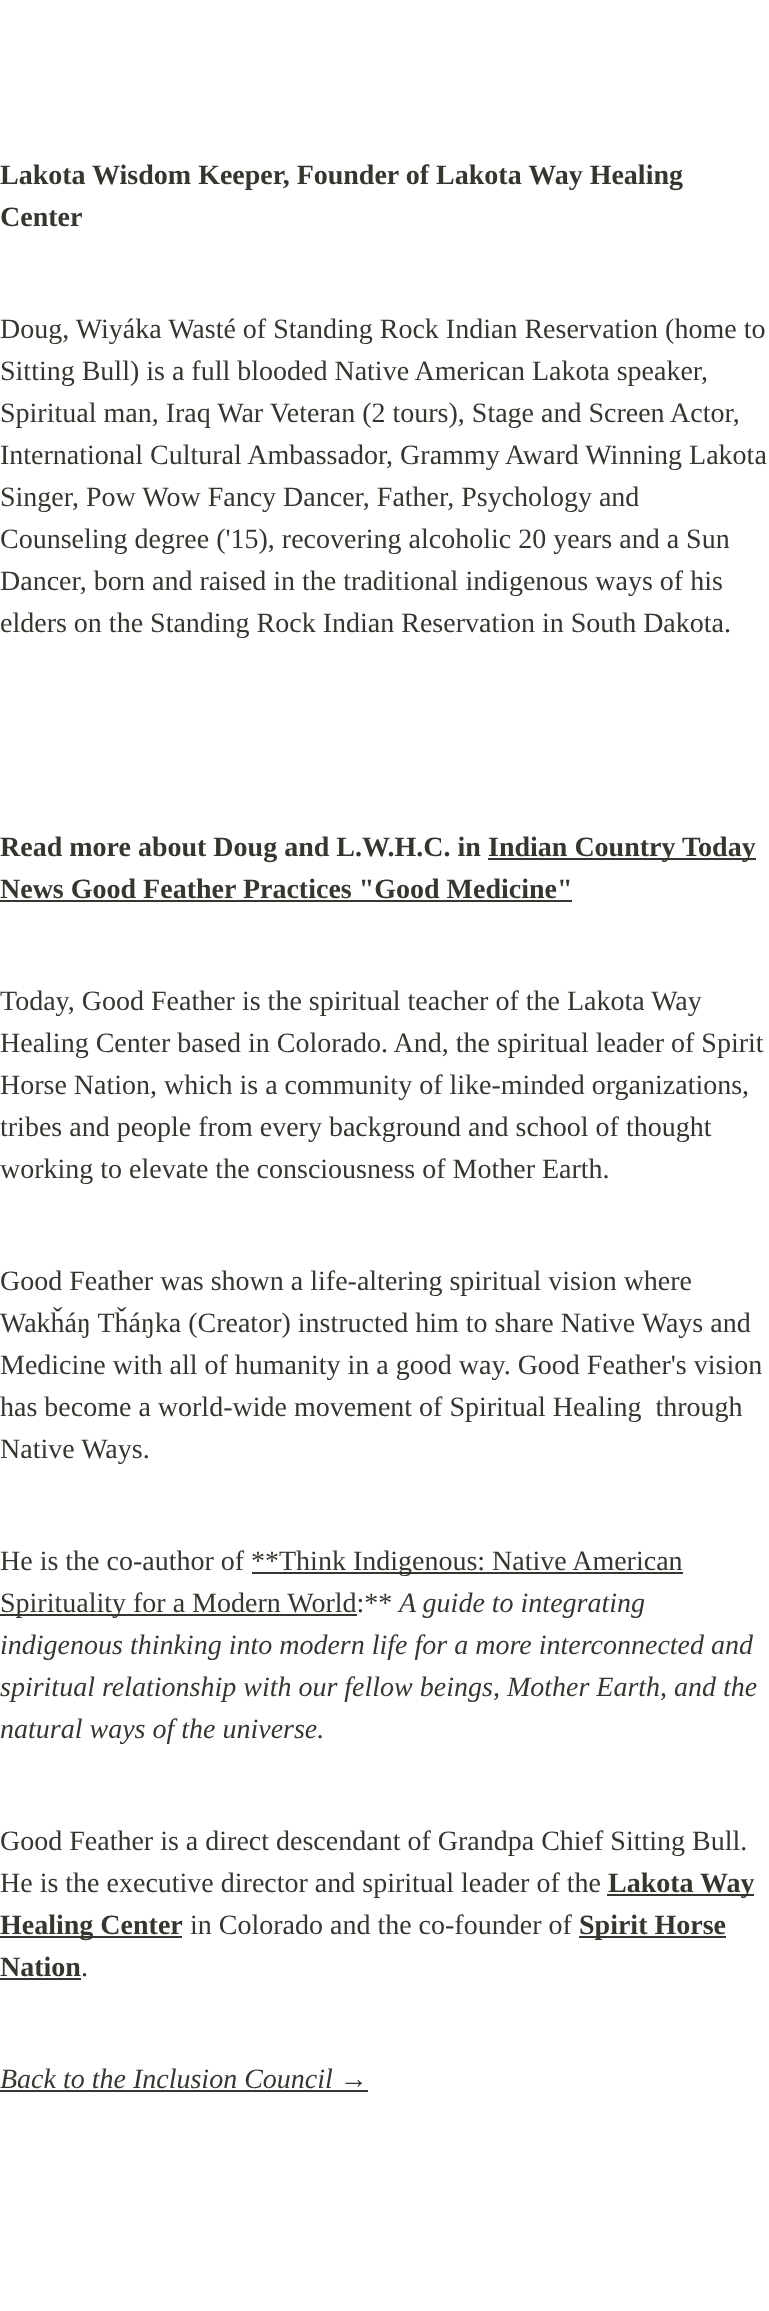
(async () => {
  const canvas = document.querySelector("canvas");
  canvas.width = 769;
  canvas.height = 2311;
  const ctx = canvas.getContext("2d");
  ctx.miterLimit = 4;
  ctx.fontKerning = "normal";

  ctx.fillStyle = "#ffffff";
  ctx.fillRect(0, 0, 769, 2311);
  for (const [x, y, w, h, color] of [
    [488, 858, 268, 2, "#37352f"],
    [0, 900, 572, 2, "#37352f"],
    [252, 1572, 431, 2, "#37352f"],
    [0, 1614, 357, 2, "#37352f"],
    [607, 1894, 147, 2, "#37352f"],
    [0, 1936, 182, 2, "#37352f"],
    [579, 1936, 147, 2, "#37352f"],
    [0, 1978, 81, 2, "#37352f"],
    [0, 2090, 368, 2, "#37352f"],
  ]) {
    ctx.fillStyle = color;
    ctx.fillRect(x, y, w, h);
  }
  ctx.font = "bold 28px Liberation Serif";
  ctx.fillText("Lakota Wisdom Keeper, Founder of Lakota Way Healing", 0, 184);
  ctx.fillText("Center", 0, 226);
  ctx.font = "28px Liberation Serif";
  for (const [text, x, y] of [
    ["Doug, Wiyáka Wasté of Standing Rock Indian Reservation (home to", 0, 338],
    ["Sitting Bull) is a full blooded Native American Lakota speaker,", 0, 380],
    ["Spiritual man, Iraq War Veteran (2 tours), Stage and Screen Actor,", 0, 422],
    ["International Cultural Ambassador, Grammy Award Winning Lakota", 0, 464],
    ["Singer, Pow Wow Fancy Dancer, Father, Psychology and", 0, 506],
    ["Counseling degree ('15), recovering alcoholic 20 years and a Sun", 0, 548],
    ["Dancer, born and raised in the traditional indigenous ways of his", 0, 590],
    ["elders on the Standing Rock Indian Reservation in South Dakota.", 0, 632],
  ]) {
    ctx.fillText(text, x, y);
  }
  ctx.font = "bold 28px Liberation Serif";
  for (const [text, x, y] of [
    ["Read more about Doug and L.W.H.C. in", 0, 856],
    ["Indian Country Today", 488, 856],
    ["News Good Feather Practices \"Good Medicine\"", 0, 898],
  ]) {
    ctx.fillText(text, x, y);
  }
  ctx.font = "28px Liberation Serif";
  for (const [text, x, y] of [
    ["Today, Good Feather is the spiritual teacher of the Lakota Way", 0, 1010],
    ["Healing Center based in Colorado. And, the spiritual leader of Spirit", 0, 1052],
    ["Horse Nation, which is a community of like-minded organizations,", 0, 1094],
    ["tribes and people from every background and school of thought", 0, 1136],
    ["working to elevate the consciousness of Mother Earth.", 0, 1178],
    ["Good Feather was shown a life-altering spiritual vision where", 0, 1290],
    ["Wakȟáŋ Tȟáŋka (Creator) instructed him to share Native Ways and", 0, 1332],
    ["Medicine with all of humanity in a good way. Good Feather's vision", 0, 1374],
    ["has become a world-wide movement of Spiritual Healing  through", 0, 1416],
    ["Native Ways.", 0, 1458],
    ["He is the co-author of", 0, 1570],
    ["**Think Indigenous: Native American", 251, 1570],
    ["Spirituality for a Modern World:**", 0, 1612],
  ]) {
    ctx.fillText(text, x, y);
  }
  ctx.font = "italic 28px Liberation Serif";
  for (const [text, x, y] of [
    ["A guide to integrating", 399, 1612],
    ["indigenous thinking into modern life for a more interconnected and", 0, 1654],
    ["spiritual relationship with our fellow beings, Mother Earth, and the", 0, 1696],
    ["natural ways of the universe.", 0, 1738],
  ]) {
    ctx.fillText(text, x, y);
  }
  ctx.font = "28px Liberation Serif";
  ctx.fillText("Good Feather is a direct descendant of Grandpa Chief Sitting Bull.", 0, 1850);
  ctx.fillText("He is the executive director and spiritual leader of the", 0, 1892);
  ctx.font = "bold 28px Liberation Serif";
  ctx.fillText("Lakota Way", 608, 1892);
  ctx.fillText("Healing Center", 0, 1934);
  ctx.font = "28px Liberation Serif";
  ctx.fillText("in Colorado and the co-founder of", 190, 1934);
  ctx.font = "bold 28px Liberation Serif";
  ctx.fillText("Spirit Horse", 579, 1934);
  ctx.fillText("Nation", 0, 1976);
  ctx.font = "28px Liberation Serif";
  ctx.fillText(".", 81, 1976);
  ctx.font = "italic 28px Liberation Serif";
  ctx.fillText("Back to the Inclusion Council →", 0, 2088);
})();
